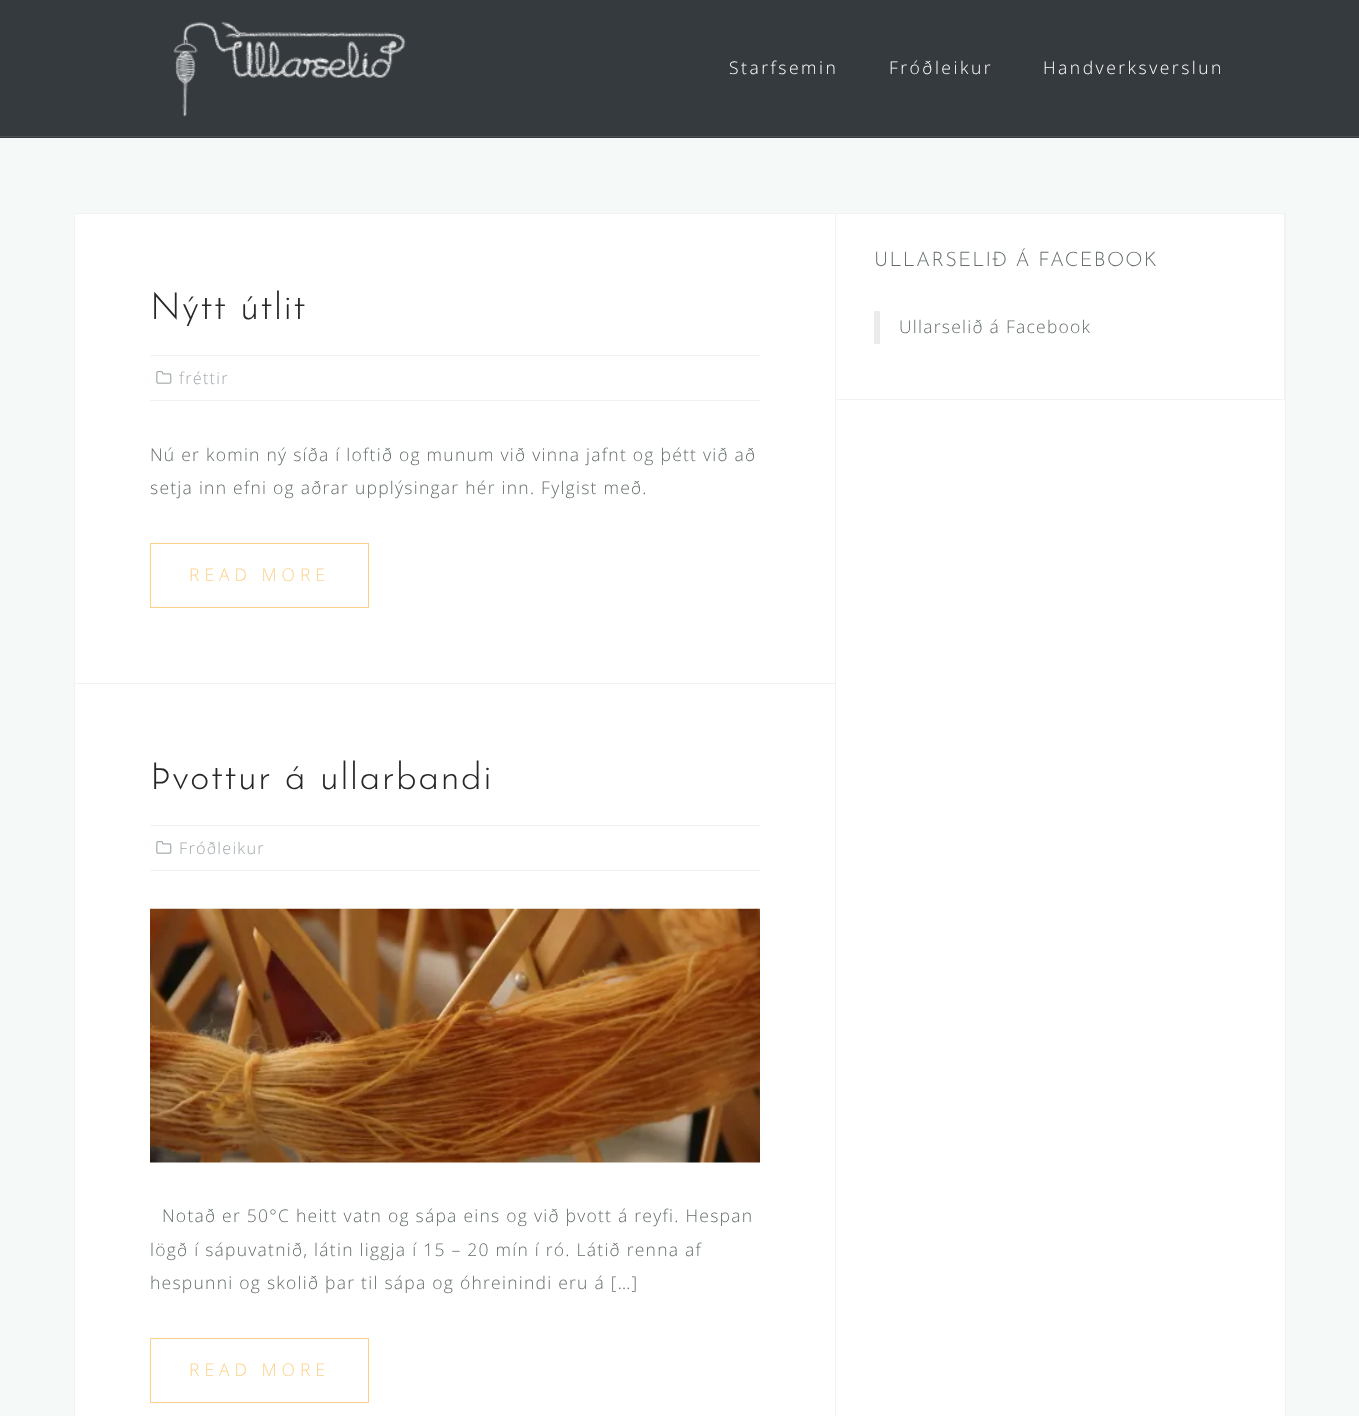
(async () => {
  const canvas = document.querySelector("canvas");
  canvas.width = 1359;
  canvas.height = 1416;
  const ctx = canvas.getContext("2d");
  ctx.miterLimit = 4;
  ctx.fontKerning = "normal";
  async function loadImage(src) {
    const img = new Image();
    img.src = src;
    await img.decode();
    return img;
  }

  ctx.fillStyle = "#f5f9f8";
  ctx.fillRect(0, 0, 1359, 1416);
  ctx.fillStyle = "#353a3e";
  ctx.fillRect(0, 0, 1359, 138);
  ctx.fillStyle = "#494e51";
  ctx.fillRect(0, 136, 1359, 1);
  ctx.drawImage(await loadImage("img/1.png"), 173, 21, 233, 96);
  ctx.fillStyle = "#ffffff";
  ctx.fillRect(836, 400, 449, 1016);
  ctx.fillStyle = "#f2f2f3";
  ctx.fillRect(1285, 213, 1, 1203);
  ctx.fillStyle = "#ffffff";
  ctx.beginPath();
  ctx.rect(74.5, 213.5, 761, 470);
  ctx.fill();
  ctx.strokeStyle = "#f2f2f3";
  ctx.stroke();
  ctx.fillStyle = "#f2f2f3";
  ctx.fillRect(150, 355, 610, 1);
  ctx.fillRect(150, 400, 610, 1);
  ctx.drawImage(await loadImage("img/2.png"), 156, 371, 16, 13);
  ctx.strokeStyle = "#fcd088";
  ctx.strokeRect(150.5, 543.5, 218, 64);
  ctx.fillStyle = "#ffffff";
  ctx.beginPath();
  ctx.rect(74.5, 683.5, 761, 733);
  ctx.fill();
  ctx.strokeStyle = "#f2f2f3";
  ctx.stroke();
  ctx.fillStyle = "#f2f2f3";
  ctx.fillRect(150, 825, 610, 1);
  ctx.fillRect(150, 870, 610, 1);
  ctx.drawImage(await loadImage("img/2.png"), 156, 841, 16, 13);
  ctx.drawImage(await loadImage("img/3.png"), 150, 908, 610, 255);
  ctx.strokeStyle = "#fcd088";
  ctx.strokeRect(150.5, 1338.5, 218, 64);
  ctx.fillStyle = "#ffffff";
  ctx.beginPath();
  ctx.rect(835.5, 213.5, 449, 186);
  ctx.fill();
  ctx.strokeStyle = "#f2f2f3";
  ctx.stroke();
  ctx.fillStyle = "#ebebeb";
  ctx.fillRect(874, 311, 6, 33);
  ctx.letterSpacing = "2.5px";
  ctx.font = "300 17.5px Open Sans";
  ctx.fillStyle = "#ffffff";
  for (const [text, x, y] of [
    ["Starfsemin", 729, 74],
    ["Fróðleikur", 889, 74],
    ["Handverksverslun", 1043, 74],
  ]) {
    ctx.fillText(text, x, y);
  }
  ctx.letterSpacing = "1.25px";
  ctx.font = "100 37.5px Josefin Sans";
  ctx.fillStyle = "#272727";
  ctx.fillText("Nýtt útlit", 150, 319);
  ctx.font = "300 16.25px Open Sans";
  ctx.fillStyle = "#a0a8ab";
  ctx.fillText("fréttir", 179, 384);
  ctx.font = "300 17.5px Open Sans";
  ctx.fillStyle = "#656d6d";
  ctx.fillText("Nú er komin ný síða í loftið og munum við vinna jafnt og þétt við að", 150, 461);
  ctx.fillText("setja inn efni og aðrar upplýsingar hér inn. Fylgist með.", 150, 494);
  ctx.letterSpacing = "5px";
  ctx.fillStyle = "#fcd088";
  ctx.fillText("READ MORE", 189, 581);
  ctx.letterSpacing = "1.25px";
  ctx.font = "100 37.5px Josefin Sans";
  ctx.fillStyle = "#272727";
  ctx.fillText("Þvottur á ullarbandi", 150, 789);
  ctx.font = "300 16.25px Open Sans";
  ctx.fillStyle = "#a0a8ab";
  ctx.fillText("Fróðleikur", 179, 854);
  ctx.font = "300 17.5px Open Sans";
  ctx.fillStyle = "#656d6d";
  for (const [text, x, y] of [
    ["Notað er 50°C heitt vatn og sápa eins og við þvott á reyfi. Hespan", 162, 1222],
    ["lögð í sápuvatnið, látin liggja í 15 – 20 mín í ró. Látið renna af", 150, 1256],
    ["hespunni og skolið þar til sápa og óhreinindi eru á […]", 150, 1289],
  ]) {
    ctx.fillText(text, x, y);
  }
  ctx.letterSpacing = "5px";
  ctx.fillStyle = "#fcd088";
  ctx.fillText("READ MORE", 189, 1376);
  ctx.letterSpacing = "1.25px";
  ctx.font = "100 20px Josefin Sans";
  ctx.fillStyle = "#656d6d";
  ctx.fillText("ULLARSELIÐ Á FACEBOOK", 874, 266);
  ctx.font = "300 17.5px Open Sans";
  ctx.fillText("Ullarselið á Facebook", 899, 333);
})();
